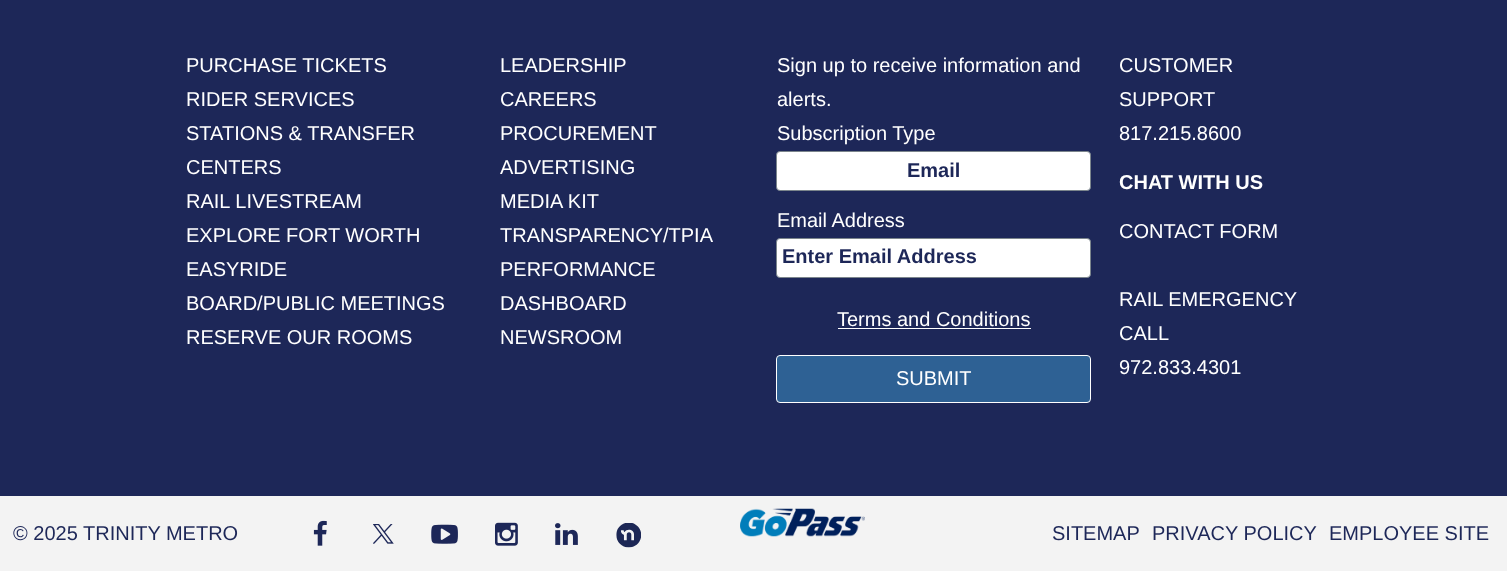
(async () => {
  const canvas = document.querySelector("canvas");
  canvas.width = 1507;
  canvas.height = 571;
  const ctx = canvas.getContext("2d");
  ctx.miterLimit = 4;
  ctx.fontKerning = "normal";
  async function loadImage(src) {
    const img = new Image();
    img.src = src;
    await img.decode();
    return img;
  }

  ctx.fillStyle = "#1d2758";
  ctx.fillRect(0, 0, 1507, 571);
  ctx.fillStyle = "#ffffff";
  ctx.beginPath();
  ctx.roundRect(776.5, 151.5, 314, 39, 3.5);
  ctx.fill();
  ctx.strokeStyle = "#7b858c";
  ctx.stroke();
  ctx.beginPath();
  ctx.roundRect(776.5, 238.5, 314, 39, 3.5);
  ctx.fill();
  ctx.stroke();
  ctx.fillRect(838, 328, 193, 1);
  ctx.fillStyle = "#2e6194";
  ctx.beginPath();
  ctx.roundRect(776.5, 355.5, 314, 47, 3.5);
  ctx.fill();
  ctx.strokeStyle = "#ffffff";
  ctx.stroke();
  ctx.fillStyle = "#f3f3f3";
  ctx.fillRect(0, 496, 1507, 75);
  ctx.drawImage(await loadImage("img/1.png"), 313, 520, 14, 26);
  ctx.drawImage(await loadImage("img/2.png"), 373, 524, 21, 20);
  ctx.drawImage(await loadImage("img/3.png"), 431, 524, 27, 20);
  ctx.drawImage(await loadImage("img/4.png"), 495, 522, 23, 24);
  ctx.drawImage(await loadImage("img/5.png"), 555, 523, 23, 22);
  ctx.drawImage(await loadImage("img/6.png"), 616, 523, 25, 25);
  ctx.drawImage(await loadImage("img/7.png"), 740, 508, 125, 29);
  ctx.font = "20px Liberation Sans";
  ctx.fillStyle = "#ffffff";
  for (const [text, x, y] of [
    ["PURCHASE TICKETS", 186, 72],
    ["RIDER SERVICES", 186, 106],
    ["STATIONS & TRANSFER", 186, 140],
    ["CENTERS", 186, 174],
    ["RAIL LIVESTREAM", 186, 208],
    ["EXPLORE FORT WORTH", 186, 242],
    ["EASYRIDE", 186, 276],
    ["BOARD/PUBLIC MEETINGS", 186, 310],
    ["RESERVE OUR ROOMS", 186, 344],
    ["LEADERSHIP", 500, 72],
    ["CAREERS", 500, 106],
    ["PROCUREMENT", 500, 140],
    ["ADVERTISING", 500, 174],
    ["MEDIA KIT", 500, 208],
    ["TRANSPARENCY/TPIA", 500, 242],
    ["PERFORMANCE", 500, 276],
    ["DASHBOARD", 500, 310],
    ["NEWSROOM", 500, 344],
    ["Sign up to receive information and", 777, 72],
    ["alerts.", 777, 106],
    ["Subscription Type", 777, 140],
  ]) {
    ctx.fillText(text, x, y);
  }
  ctx.font = "bold 20px Liberation Sans";
  ctx.fillStyle = "#1d2758";
  ctx.fillText("Email", 907, 177);
  ctx.font = "20px Liberation Sans";
  ctx.fillStyle = "#ffffff";
  ctx.fillText("Email Address", 777, 227);
  ctx.font = "bold 20px Liberation Sans";
  ctx.fillStyle = "#1d2758";
  ctx.fillText("Enter Email Address", 782, 263);
  ctx.font = "20px Liberation Sans";
  ctx.fillStyle = "#ffffff";
  for (const [text, x, y] of [
    ["Terms and Conditions", 837, 326],
    ["SUBMIT", 896, 385],
    ["CUSTOMER", 1119, 72],
    ["SUPPORT", 1119, 106],
    ["817.215.8600", 1119, 140],
  ]) {
    ctx.fillText(text, x, y);
  }
  ctx.font = "bold 20px Liberation Sans";
  ctx.fillText("CHAT WITH US", 1119, 189);
  ctx.font = "20px Liberation Sans";
  for (const [text, x, y] of [
    ["CONTACT FORM", 1119, 238],
    ["RAIL EMERGENCY", 1119, 306],
    ["CALL", 1119, 340],
    ["972.833.4301", 1119, 374],
  ]) {
    ctx.fillText(text, x, y);
  }
  ctx.fillStyle = "#1d2758";
  for (const [text, x, y] of [
    ["© 2025 TRINITY METRO", 13, 540],
    ["SITEMAP", 1052, 540],
    ["PRIVACY POLICY", 1152, 540],
    ["EMPLOYEE SITE", 1329, 540],
  ]) {
    ctx.fillText(text, x, y);
  }
})();
